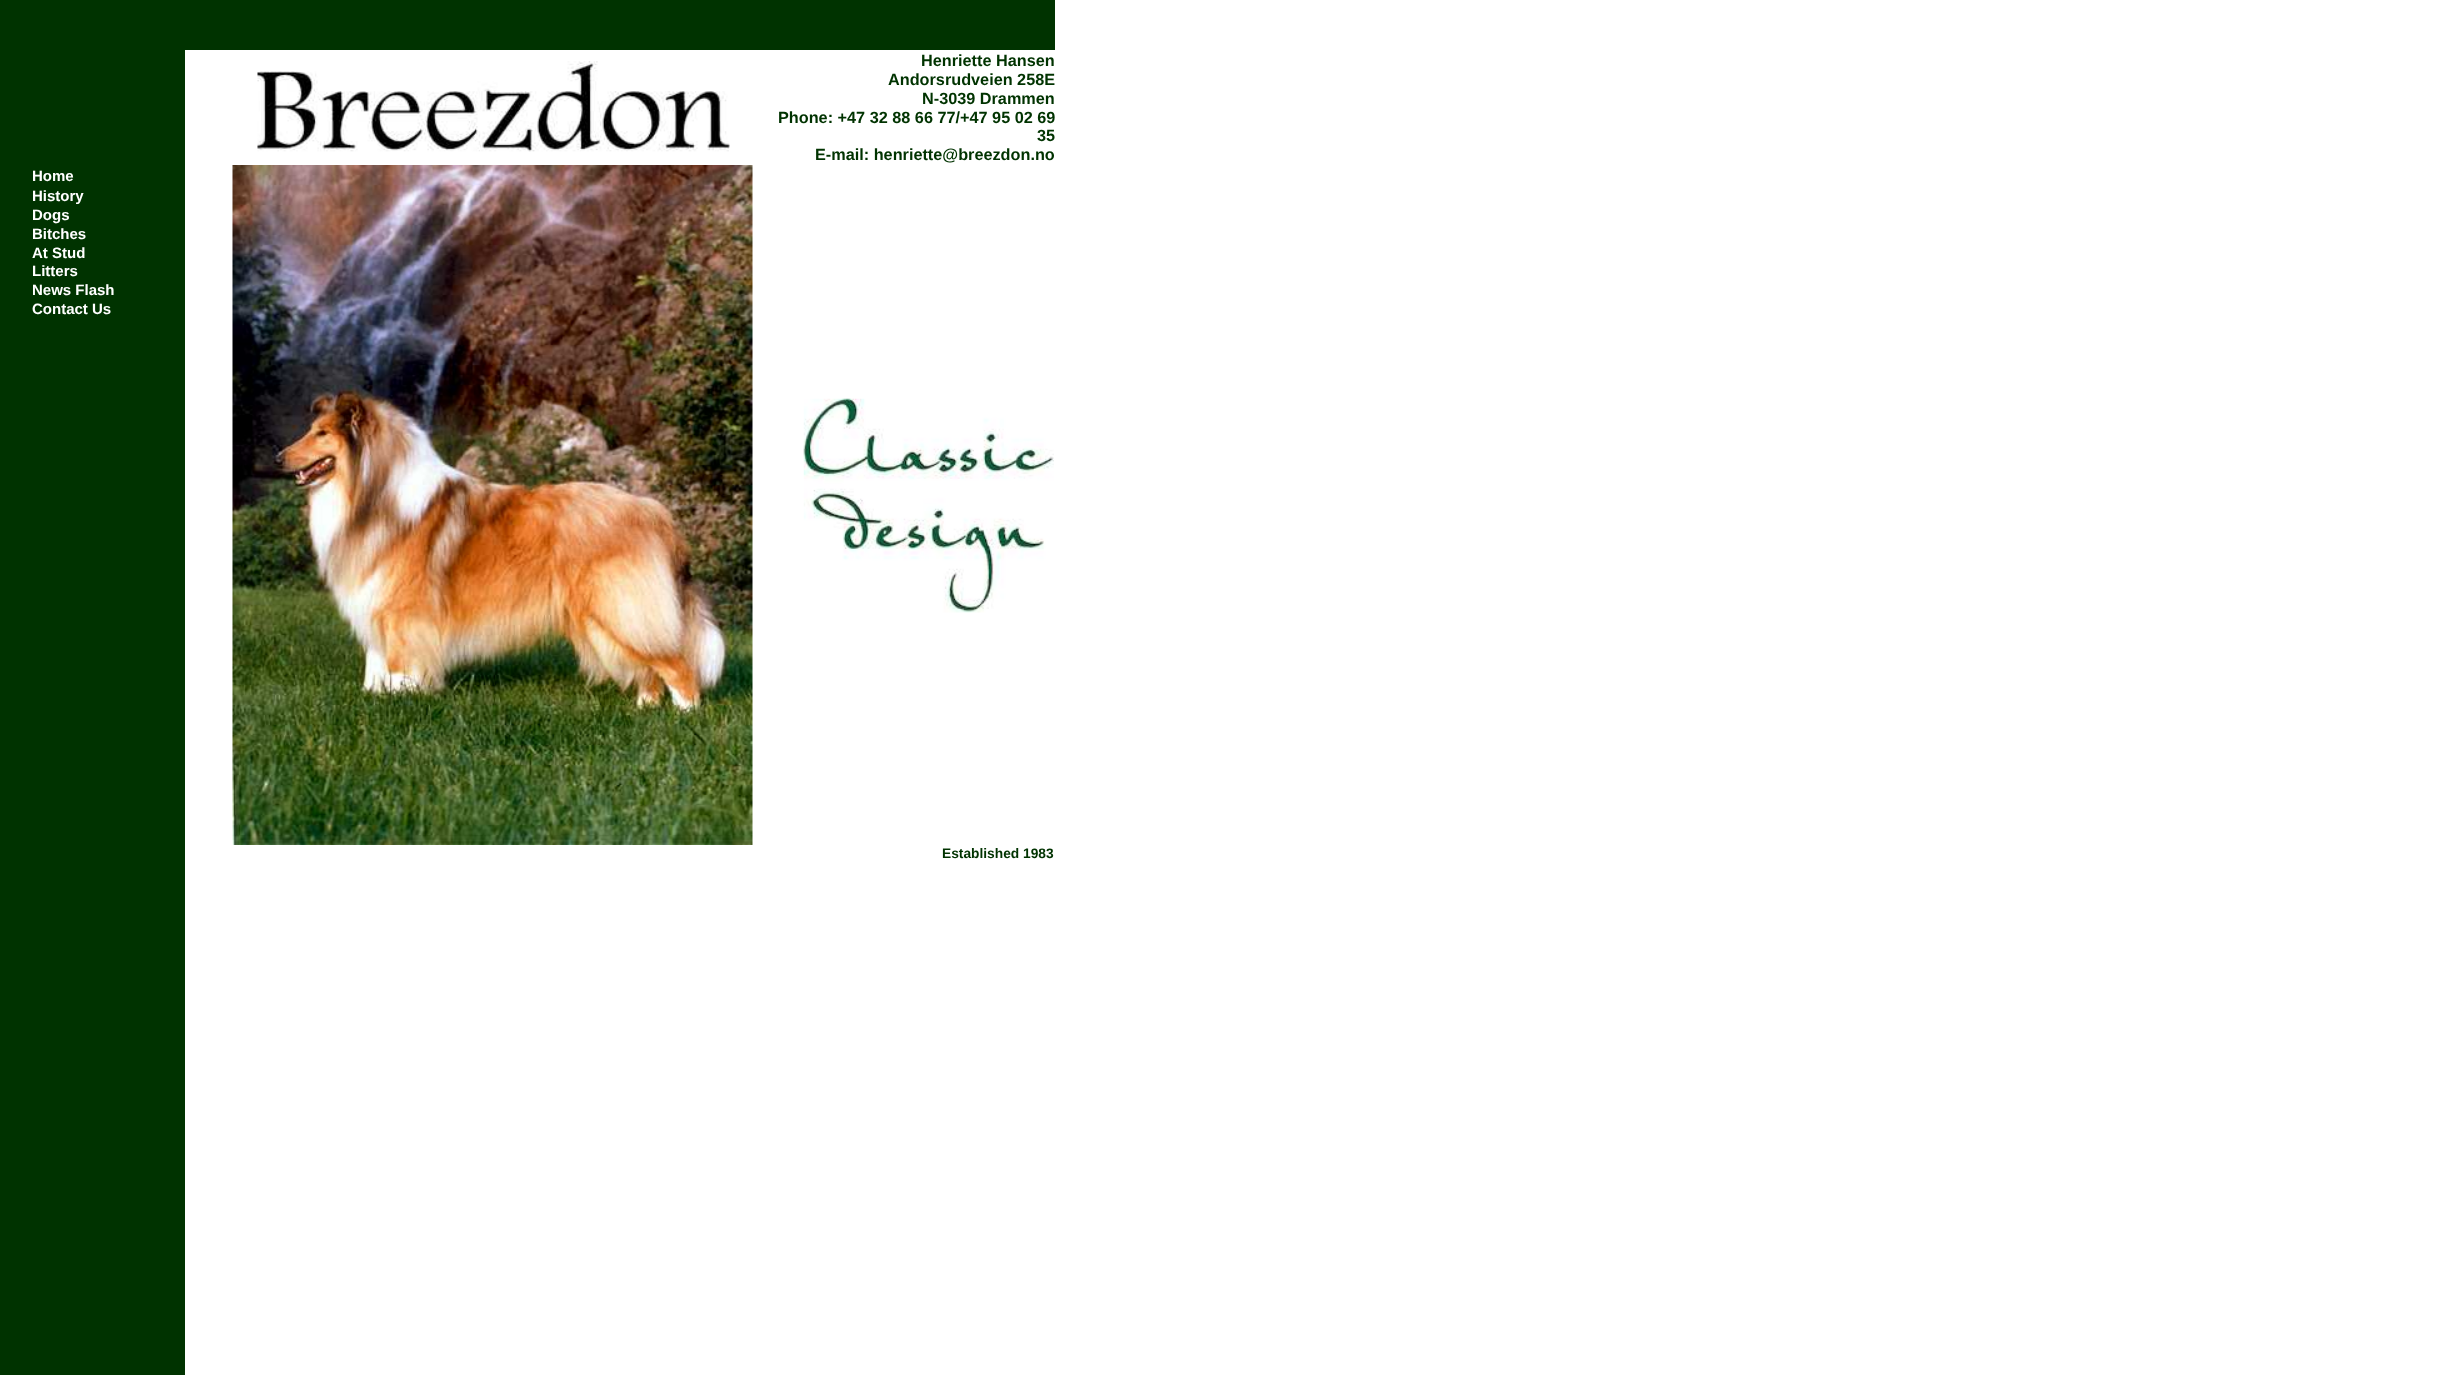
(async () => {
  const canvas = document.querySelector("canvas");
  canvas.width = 2444;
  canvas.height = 1375;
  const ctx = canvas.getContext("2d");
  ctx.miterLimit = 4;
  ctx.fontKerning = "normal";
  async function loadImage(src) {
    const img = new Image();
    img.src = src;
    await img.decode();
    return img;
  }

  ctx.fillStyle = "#ffffff";
  ctx.fillRect(0, 0, 2444, 1375);
  ctx.fillStyle = "#003300";
  ctx.fillRect(0, 0, 1055, 50);
  ctx.fillRect(0, 50, 185, 1325);
  ctx.drawImage(await loadImage("img/1.png"), 257, 61, 473, 91);
  ctx.drawImage(await loadImage("img/2.png"), 232, 165, 521, 680);
  ctx.drawImage(await loadImage("img/3.png"), 803, 398, 251, 215);
  ctx.font = "bold 16.25px Liberation Sans";
  for (const [text, x, y] of [
    ["Henriette Hansen", 921, 66],
    ["Andorsrudveien 258E", 888, 85],
    ["N-3039 Drammen", 922, 104],
    ["Phone: +47 32 88 66 77/+47 95 02 69", 778, 123],
    ["35", 1037, 141],
    ["E-mail: henriette@breezdon.no", 815, 160],
  ]) {
    ctx.fillText(text, x, y);
  }
  ctx.font = "bold 15px Liberation Sans";
  ctx.fillStyle = "#ffffff";
  for (const [text, x, y] of [
    ["Home", 32, 181],
    ["History", 32, 201],
    ["Dogs", 32, 220],
    ["Bitches", 32, 239],
    ["At Stud", 32, 258],
    ["Litters", 32, 276],
    ["News Flash", 32, 295],
    ["Contact Us", 32, 314],
  ]) {
    ctx.fillText(text, x, y);
  }
  ctx.font = "bold 13.75px Liberation Sans";
  ctx.fillStyle = "#003300";
  ctx.fillText("Established 1983", 942, 858);
})();
